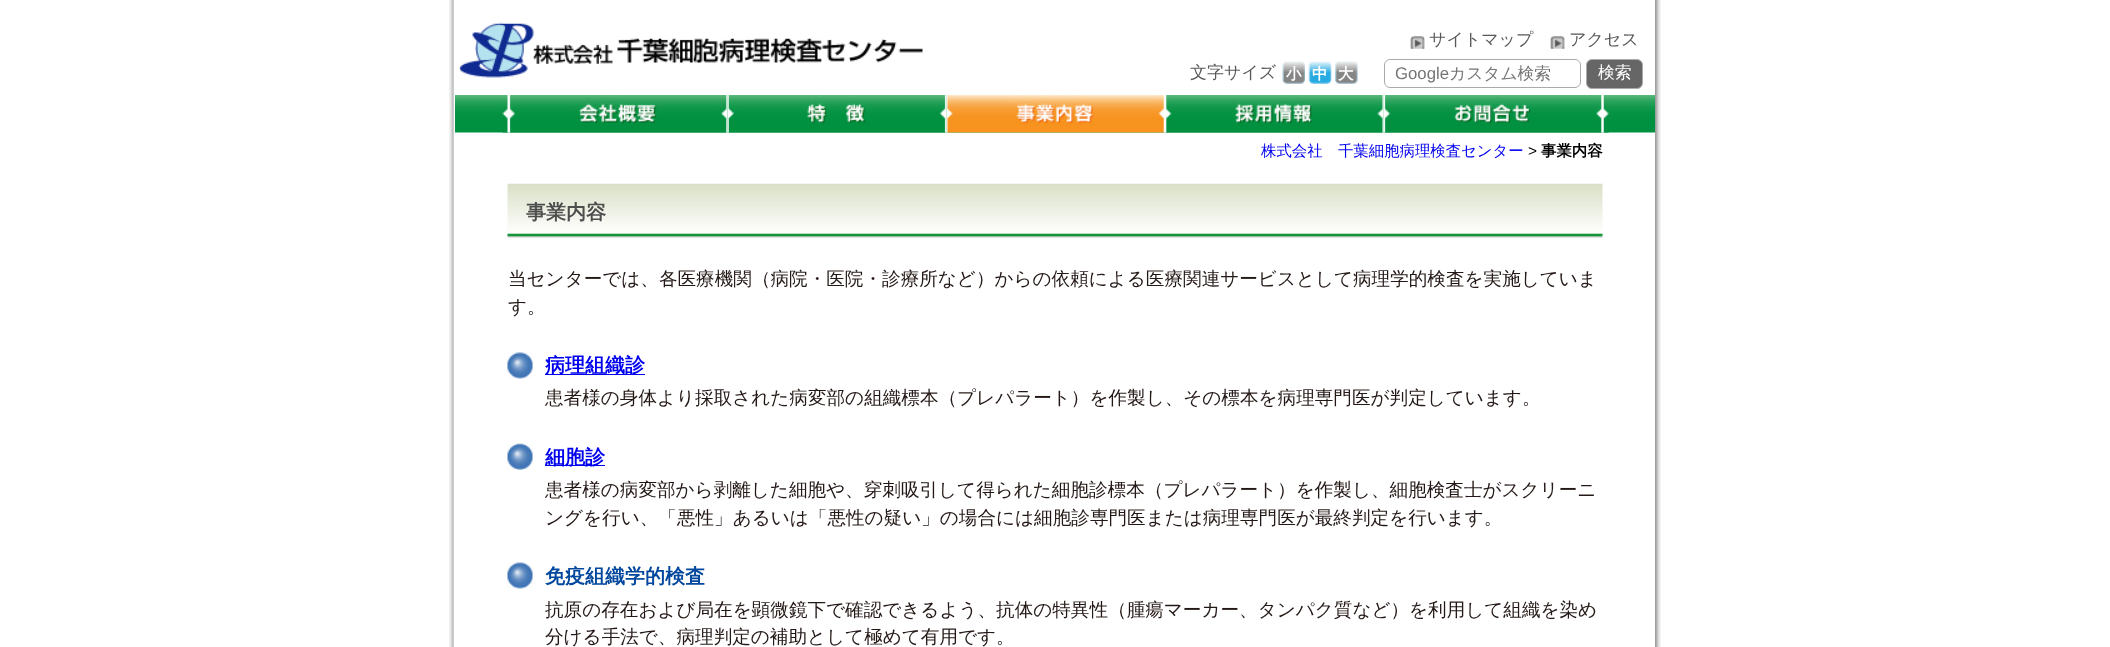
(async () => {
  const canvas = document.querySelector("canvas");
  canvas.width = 2110;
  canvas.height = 647;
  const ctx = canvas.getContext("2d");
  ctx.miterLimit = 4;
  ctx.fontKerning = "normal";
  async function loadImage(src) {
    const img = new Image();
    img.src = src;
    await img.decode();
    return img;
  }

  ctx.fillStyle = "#ffffff";
  ctx.fillRect(0, 0, 2110, 647);
  ctx.drawImage(await loadImage("img/1.png"), 449, 0, 1212, 647);
  ctx.fillRect(1653, 0, 2, 647);
  ctx.drawImage(await loadImage("img/2.png"), 459, 22, 464, 56);
  ctx.drawImage(await loadImage("img/3.png"), 1410, 36, 15, 13);
  ctx.drawImage(await loadImage("img/4.png"), 1550, 36, 15, 13);
  ctx.drawImage(await loadImage("img/5.png"), 1282, 61, 23, 23);
  ctx.drawImage(await loadImage("img/6.png"), 1308, 61, 24, 23);
  ctx.fillStyle = "#f2f5fb";
  ctx.fillRect(1335, 61, 23, 23);
  ctx.drawImage(await loadImage("img/7.png"), 1335, 61, 23, 23);
  ctx.beginPath();
  ctx.roundRect(1384.5, 59.5, 196, 28, 5.5);
  ctx.strokeStyle = "#aaaaaa";
  ctx.stroke();
  ctx.fillStyle = "#666666";
  ctx.beginPath();
  ctx.roundRect(1586.5, 59.5, 56, 29, 5.5);
  ctx.fill();
  ctx.stroke();
  ctx.drawImage(await loadImage("img/8.png"), 455, 95, 1200, 38);
  ctx.drawImage(await loadImage("img/9.png"), 502, 95, 226, 38);
  ctx.drawImage(await loadImage("img/10.png"), 727, 95, 220, 38);
  ctx.drawImage(await loadImage("img/11.png"), 946, 95, 219, 38);
  ctx.drawImage(await loadImage("img/12.png"), 1165, 95, 219, 38);
  ctx.drawImage(await loadImage("img/13.png"), 1383, 95, 226, 38);
  ctx.drawImage(await loadImage("img/14.png"), 507, 183, 1096, 55);
  ctx.drawImage(await loadImage("img/15.png"), 507, 352, 26, 27);
  ctx.fillStyle = "#0000ee";
  ctx.fillRect(545, 374, 100, 1);
  ctx.drawImage(await loadImage("img/16.png"), 507, 443, 26, 27);
  ctx.fillRect(545, 465, 60, 1);
  ctx.drawImage(await loadImage("img/15.png"), 507, 562, 26, 27);
  ctx.font = "500 17px WenQuanYi Zen Hei";
  ctx.fillStyle = "#595757";
  for (const [text, x, y] of [
    ["サイトマップ", 1429, 45],
    ["アクセス", 1569, 45],
    ["文字サイズ", 1190, 78],
  ]) {
    ctx.fillText(text, x, y);
  }
  ctx.font = "bold 15.4px WenQuanYi Zen Hei";
  ctx.fillStyle = "#ffffff";
  for (const [text, x, y] of [
    ["小", 1286, 79],
    ["中", 1312, 79],
    ["大", 1338, 79],
  ]) {
    ctx.fillText(text, x, y);
  }
  ctx.font = "16.75px Liberation Sans";
  ctx.fillStyle = "#757575";
  ctx.fillText("Google", 1395, 79);
  ctx.font = "500 16.75px WenQuanYi Zen Hei";
  ctx.fillText("カスタム検索", 1449, 79);
  ctx.fillStyle = "#ffffff";
  ctx.fillText("検索", 1598, 78);
  ctx.font = "500 15.4px WenQuanYi Zen Hei";
  ctx.fillStyle = "#0000ee";
  ctx.fillText("株式会社　千葉細胞病理検査センター", 1261, 156);
  ctx.font = "15.4px Liberation Sans";
  ctx.fillStyle = "#000000";
  ctx.fillText(">", 1528, 156);
  ctx.font = "bold 15.4px WenQuanYi Zen Hei";
  ctx.fillText("事業内容", 1541, 156);
  ctx.font = "bold 20px WenQuanYi Zen Hei";
  ctx.fillStyle = "#4d4d4d";
  ctx.fillText("事業内容", 526, 219);
  ctx.font = "500 18.6px WenQuanYi Zen Hei";
  ctx.fillStyle = "#231815";
  ctx.fillText("当センターでは、各医療機関（病院・医院・診療所など）からの依頼による医療関連サービスとして病理学的検査を実施していま", 508, 285);
  ctx.fillText("す。", 508, 313);
  ctx.font = "bold 20px WenQuanYi Zen Hei";
  ctx.fillStyle = "#0000ee";
  ctx.fillText("病理組織診", 545, 372);
  ctx.font = "500 18.6px WenQuanYi Zen Hei";
  ctx.fillStyle = "#231815";
  ctx.fillText("患者様の身体より採取された病変部の組織標本（プレパラート）を作製し、その標本を病理専門医が判定しています。", 545, 404);
  ctx.font = "bold 20px WenQuanYi Zen Hei";
  ctx.fillStyle = "#0000ee";
  ctx.fillText("細胞診", 545, 464);
  ctx.font = "500 18.6px WenQuanYi Zen Hei";
  ctx.fillStyle = "#231815";
  ctx.fillText("患者様の病変部から剥離した細胞や、穿刺吸引して得られた細胞診標本（プレパラート）を作製し、細胞検査士がスクリーニ", 545, 496);
  ctx.fillText("ングを行い、「悪性」あるいは「悪性の疑い」の場合には細胞診専門医または病理専門医が最終判定を行います。", 545, 524);
  ctx.font = "bold 20px WenQuanYi Zen Hei";
  ctx.fillStyle = "#00479d";
  ctx.fillText("免疫組織学的検査", 545, 583);
  ctx.font = "500 18.6px WenQuanYi Zen Hei";
  ctx.fillStyle = "#231815";
  ctx.fillText("抗原の存在および局在を顕微鏡下で確認できるよう、抗体の特異性（腫瘍マーカー、タンパク質など）を利用して組織を染め", 545, 616);
  ctx.fillText("分ける手法で、病理判定の補助として極めて有用です。", 545, 643);
})();
